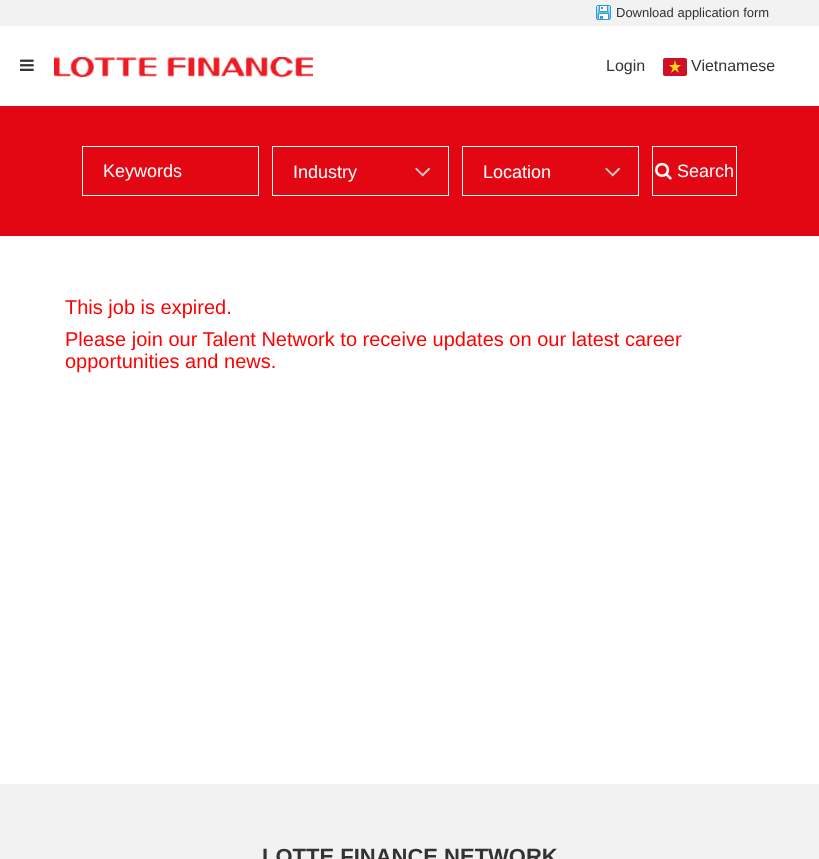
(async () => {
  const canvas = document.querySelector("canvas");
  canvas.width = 819;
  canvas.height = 859;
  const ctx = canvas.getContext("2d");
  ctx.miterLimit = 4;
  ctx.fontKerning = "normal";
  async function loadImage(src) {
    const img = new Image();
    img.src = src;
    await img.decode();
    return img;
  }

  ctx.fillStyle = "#ffffff";
  ctx.fillRect(0, 0, 819, 859);
  ctx.fillStyle = "#f2f2f2";
  ctx.fillRect(0, 0, 819, 26);
  ctx.drawImage(await loadImage("img/1.png"), 596, 5, 15, 15);
  ctx.drawImage(await loadImage("img/2.png"), 20, 59, 14, 12);
  ctx.drawImage(await loadImage("img/3.png"), 54, 57, 259, 20);
  ctx.drawImage(await loadImage("img/4.png"), 663, 58, 24, 18);
  ctx.fillStyle = "#e30613";
  ctx.fillRect(0, 106, 819, 130);
  ctx.strokeStyle = "#ffffff";
  ctx.strokeRect(82.5, 146.5, 176, 49);
  ctx.strokeRect(272.5, 146.5, 176, 49);
  ctx.drawImage(await loadImage("img/5.png"), 415, 167, 16, 10);
  ctx.strokeRect(462.5, 146.5, 176, 49);
  ctx.drawImage(await loadImage("img/5.png"), 605, 167, 16, 10);
  ctx.strokeRect(652.5, 146.5, 84, 49);
  ctx.drawImage(await loadImage("img/6.png"), 655, 162, 17, 18);
  ctx.fillStyle = "#f2f2f2";
  ctx.fillRect(0, 784, 819, 75);
  ctx.font = "13px Liberation Sans";
  ctx.fillStyle = "#333333";
  ctx.fillText("Download application form", 616, 17);
  ctx.font = "16px Liberation Sans";
  ctx.fillText("Login", 606, 71);
  ctx.fillText("Vietnamese", 691, 71);
  ctx.font = "18px Liberation Sans";
  ctx.fillStyle = "#ffffff";
  for (const [text, x, y] of [
    ["Keywords", 103, 177],
    ["Industry", 293, 178],
    ["Location", 483, 178],
    ["Search", 677, 177],
  ]) {
    ctx.fillText(text, x, y);
  }
  ctx.font = "20px Liberation Sans";
  ctx.fillStyle = "#ff0000";
  for (const [text, x, y] of [
    ["This job is expired.", 65, 314],
    ["Please join our Talent Network to receive updates on our latest career", 65, 346],
    ["opportunities and news.", 65, 368],
  ]) {
    ctx.fillText(text, x, y);
  }
  ctx.font = "bold 22px Liberation Sans";
  ctx.fillStyle = "#333333";
  ctx.fillText("LOTTE FINANCE NETWORK", 262, 864);
})();
